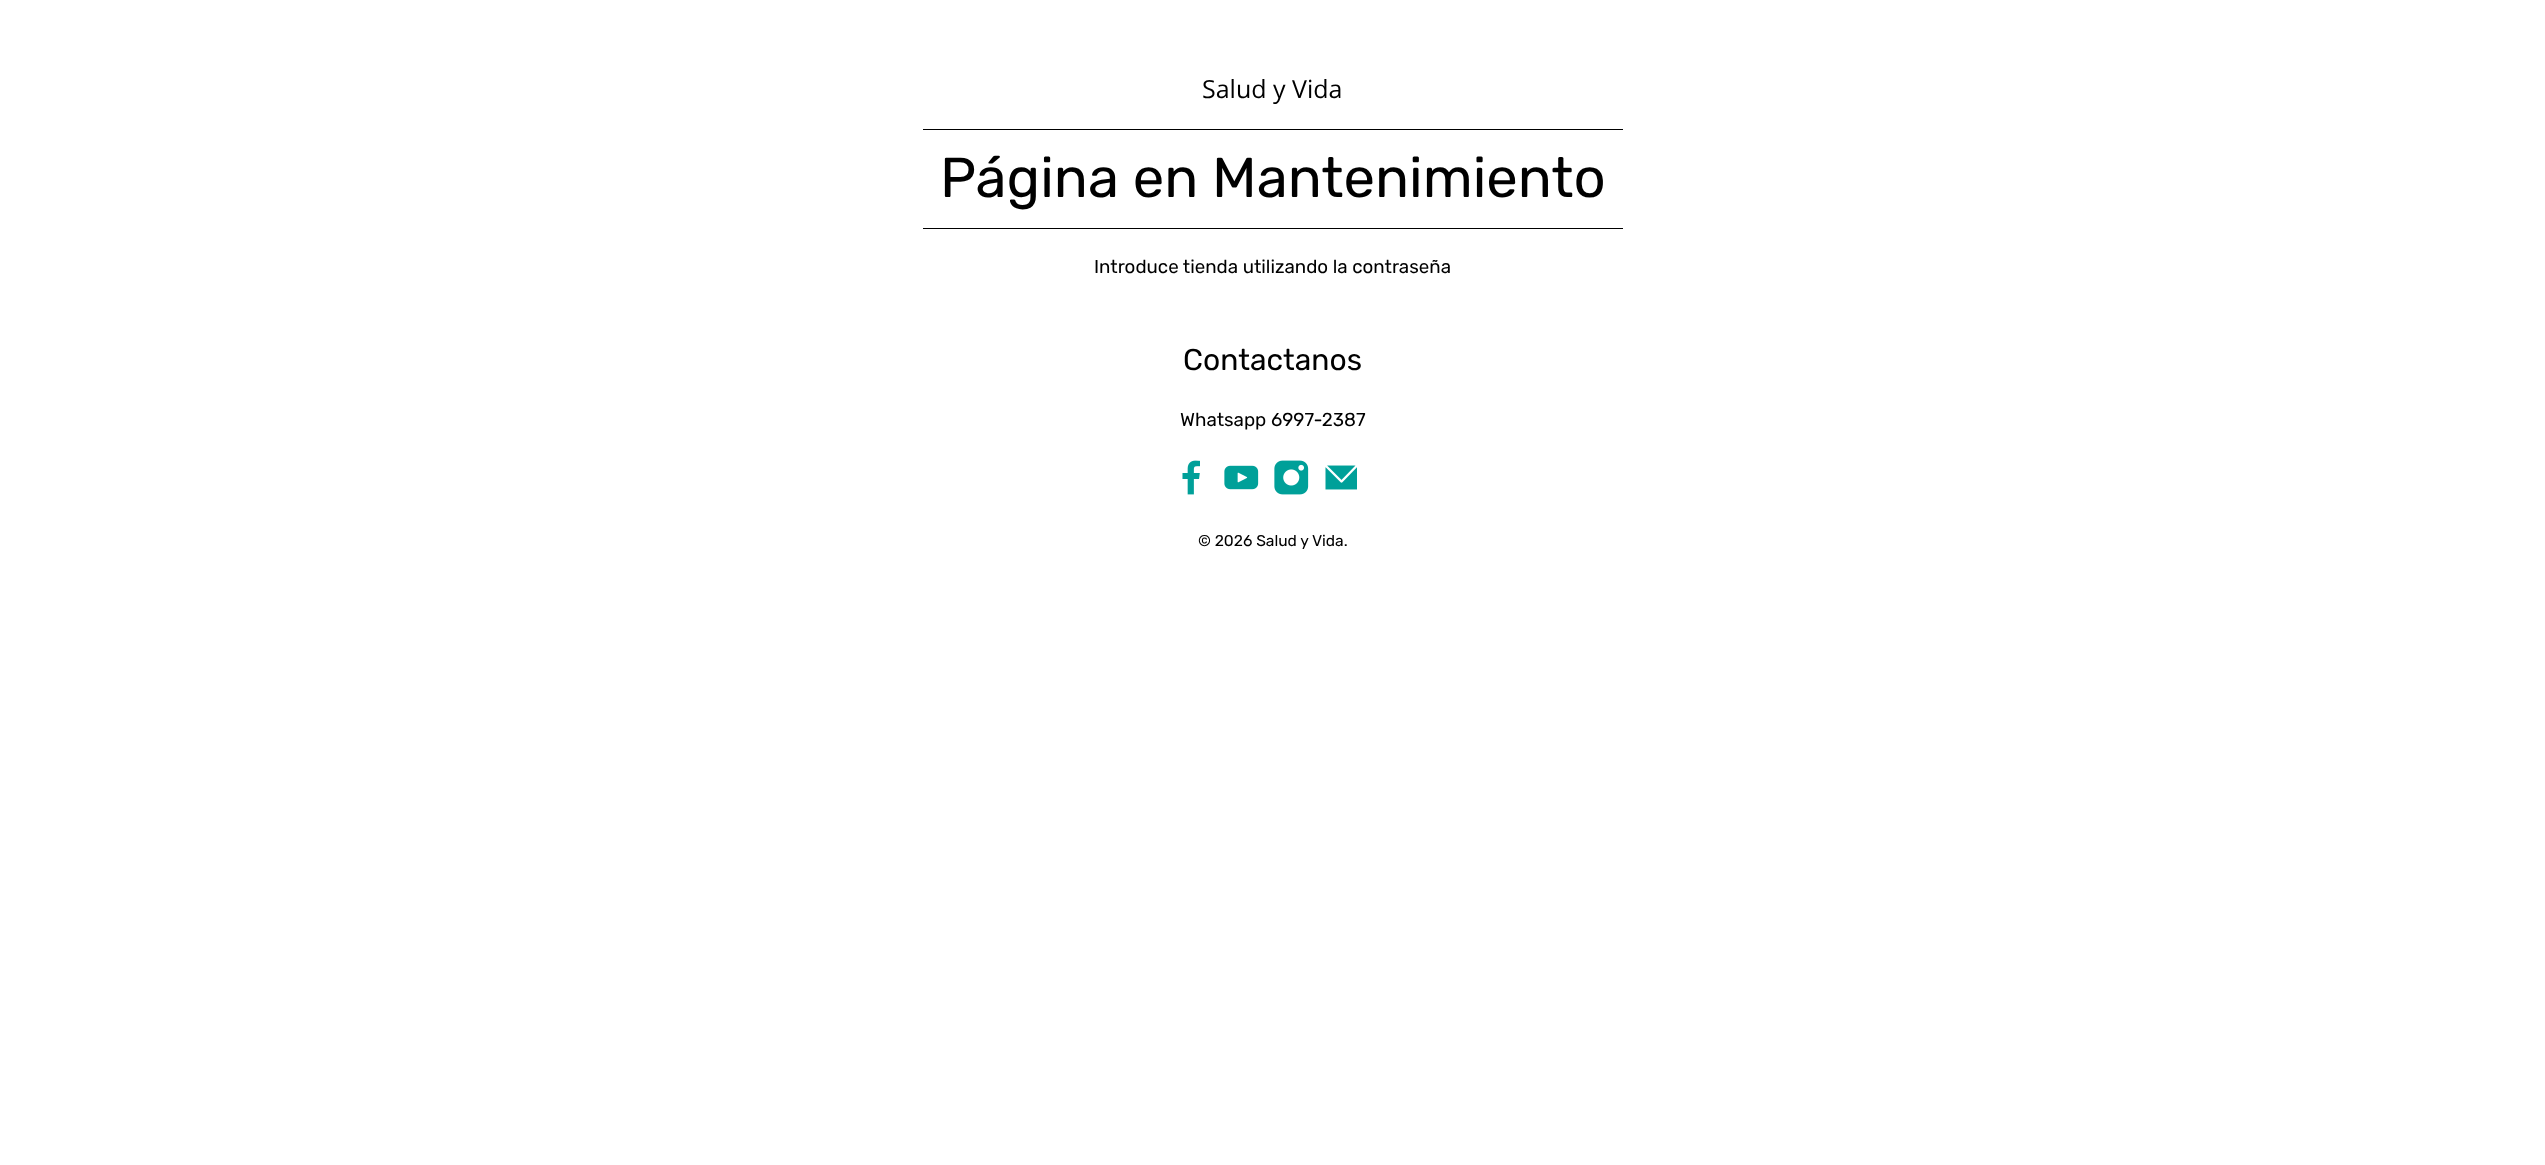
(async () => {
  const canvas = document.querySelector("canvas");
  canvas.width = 2545;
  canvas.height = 1165;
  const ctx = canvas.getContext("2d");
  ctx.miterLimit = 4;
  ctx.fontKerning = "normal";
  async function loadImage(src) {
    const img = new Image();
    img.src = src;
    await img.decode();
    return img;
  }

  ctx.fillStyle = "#ffffff";
  ctx.fillRect(0, 0, 2545, 1165);
  ctx.fillStyle = "#000000";
  ctx.fillRect(923, 129, 700, 1);
  ctx.fillRect(923, 228, 700, 1);
  ctx.drawImage(await loadImage("img/1.png"), 1182, 460, 18, 35);
  ctx.drawImage(await loadImage("img/2.png"), 1224, 465, 35, 25);
  ctx.drawImage(await loadImage("img/3.png"), 1274, 460, 35, 35);
  ctx.drawImage(await loadImage("img/4.png"), 1325, 465, 32, 25);
  ctx.font = "25px Open Sans";
  ctx.fillText("Salud y Vida", 1202, 98);
  ctx.font = "56.25px Rubik";
  ctx.fillText("Página en Mantenimiento", 940, 197);
  ctx.font = "18.75px Rubik";
  ctx.fillText("Introduce tienda utilizando la contraseña", 1094, 273);
  ctx.font = "30px Rubik";
  ctx.fillText("Contactanos", 1183, 370);
  ctx.font = "18.75px Rubik";
  ctx.fillText("Whatsapp 6997-2387", 1180, 426);
  ctx.font = "15.6px Rubik";
  ctx.fillText("© 2026 Salud y Vida.", 1198, 546);
})();
